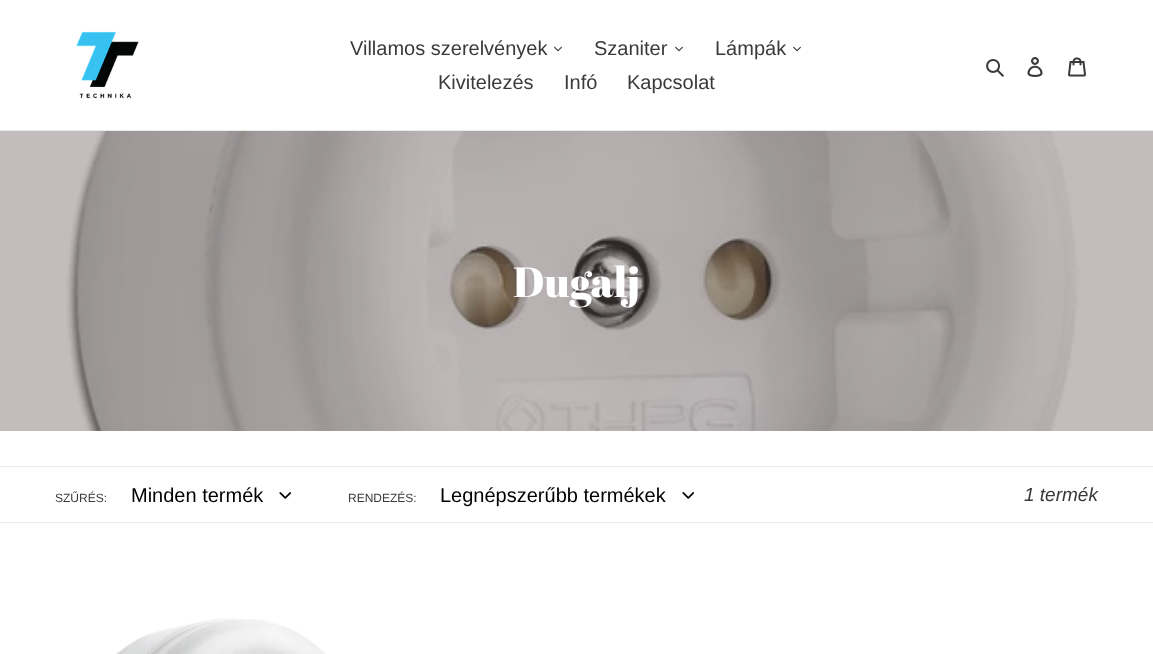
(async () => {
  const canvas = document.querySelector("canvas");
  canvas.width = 1153;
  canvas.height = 654;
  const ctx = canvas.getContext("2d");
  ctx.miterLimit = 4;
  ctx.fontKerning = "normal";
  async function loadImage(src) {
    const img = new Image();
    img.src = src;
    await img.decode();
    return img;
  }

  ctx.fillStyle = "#ffffff";
  ctx.fillRect(0, 0, 1153, 654);
  ctx.fillStyle = "#c3bcbc";
  ctx.fillRect(0, 131, 1153, 300);
  ctx.fillStyle = "#ebebeb";
  ctx.fillRect(0, 130, 1153, 1);
  ctx.drawImage(await loadImage("img/1.png"), 76, 31, 63, 68);
  ctx.drawImage(await loadImage("img/2.png"), 554, 46, 8, 6);
  ctx.drawImage(await loadImage("img/2.png"), 675, 46, 8, 6);
  ctx.drawImage(await loadImage("img/2.png"), 793, 46, 8, 6);
  ctx.drawImage(await loadImage("img/3.png"), 986, 59, 18, 18);
  ctx.drawImage(await loadImage("img/4.png"), 1027, 57, 16, 20);
  ctx.drawImage(await loadImage("img/5.png"), 1068, 57, 18, 20);
  ctx.drawImage(await loadImage("img/6.png"), 66, 131, 1014, 300);
  ctx.fillRect(0, 466, 1153, 1);
  ctx.fillRect(0, 522, 1153, 1);
  ctx.drawImage(await loadImage("img/7.png"), 279, 492, 13, 7);
  ctx.drawImage(await loadImage("img/7.png"), 682, 492, 13, 7);
  ctx.drawImage(await loadImage("img/8.png"), 116, 618, 210, 36);
  ctx.font = "20px Liberation Sans";
  ctx.fillStyle = "#3a3a3a";
  for (const [text, x, y] of [
    ["Villamos szerelvények", 350, 55],
    ["Szaniter", 594, 55],
    ["Lámpák", 715, 55],
    ["Kivitelezés", 438, 89],
    ["Infó", 564, 89],
    ["Kapcsolat", 627, 89],
  ]) {
    ctx.fillText(text, x, y);
  }
  ctx.font = "42px Abril Fatface";
  ctx.fillStyle = "#ffffff";
  ctx.fillText("Dugalj", 513, 297);
  ctx.font = "12px Liberation Sans";
  ctx.fillStyle = "#3a3a3a";
  ctx.fillText("SZŰRÉS:", 55, 502);
  ctx.font = "20px Liberation Sans";
  ctx.fillStyle = "#000000";
  ctx.fillText("Minden termék", 131, 502);
  ctx.font = "12px Liberation Sans";
  ctx.fillStyle = "#3a3a3a";
  ctx.fillText("RENDEZÉS:", 348, 502);
  ctx.font = "20px Liberation Sans";
  ctx.fillStyle = "#000000";
  ctx.fillText("Legnépszerűbb termékek", 440, 502);
  ctx.font = "italic 19px Liberation Sans";
  ctx.fillStyle = "#3a3a3a";
  ctx.fillText("1 termék", 1024, 501);
})();
